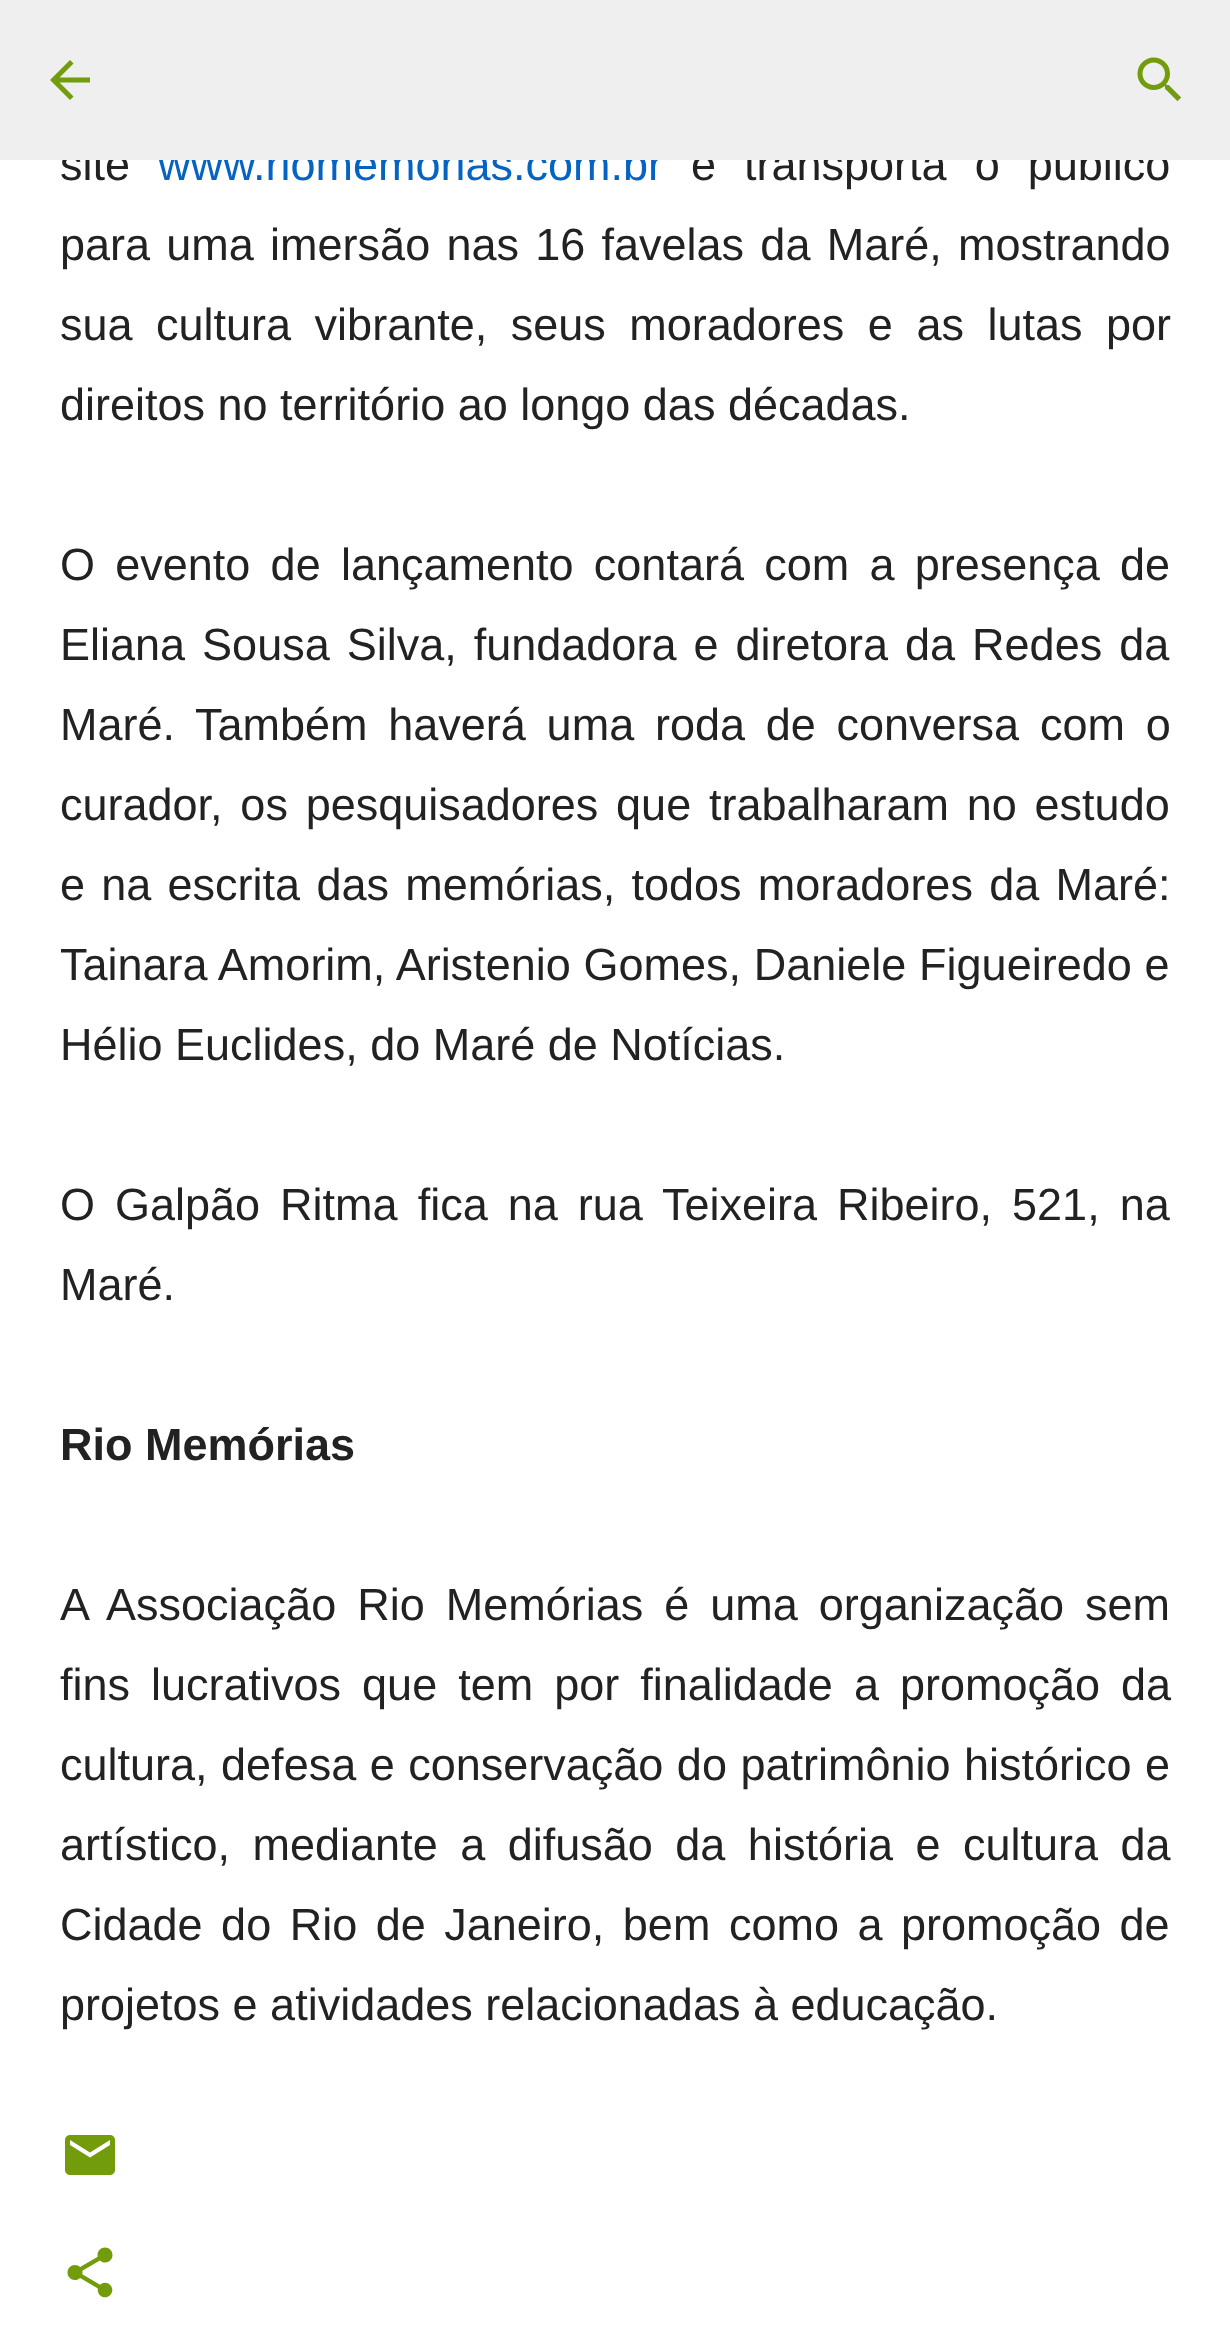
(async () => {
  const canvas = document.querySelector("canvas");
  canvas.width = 1230;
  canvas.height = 2327;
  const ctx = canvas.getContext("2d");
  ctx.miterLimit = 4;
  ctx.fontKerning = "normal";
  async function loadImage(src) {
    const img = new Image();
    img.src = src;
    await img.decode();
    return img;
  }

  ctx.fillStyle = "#ffffff";
  ctx.fillRect(0, 0, 1230, 2327);
  ctx.drawImage(await loadImage("img/3.png"), 65, 2135, 50, 40);
  ctx.drawImage(await loadImage("img/4.png"), 67, 2247, 46, 51);
  ctx.font = "45px Liberation Sans";
  ctx.fillStyle = "#222222";
  ctx.fillText("site", 60, 180);
  ctx.fillStyle = "#0563c1";
  ctx.fillText("www.riomemorias.com.br", 158, 180);
  ctx.wordSpacing = "15.5px";
  ctx.fillStyle = "#222222";
  ctx.fillText("e transporta o público", 691, 180);
  ctx.fillStyle = "#efefef";
  ctx.fillRect(0, 0, 1230, 160);
  ctx.drawImage(await loadImage("img/2.png"), 1137, 57, 45, 45);
  ctx.drawImage(await loadImage("img/1.png"), 50, 60, 40, 40);
  ctx.wordSpacing = "3.75px";
  ctx.fillStyle = "#222222";
  ctx.fillText("para uma imersão nas 16 favelas da Maré, mostrando", 60, 260);
  ctx.wordSpacing = "11px";
  ctx.fillText("sua cultura vibrante, seus moradores e as lutas por", 60, 340);
  ctx.wordSpacing = "0px";
  ctx.fillText("direitos no território ao longo das décadas.", 60, 420);
  ctx.wordSpacing = "7.75px";
  ctx.fillText("O evento de lançamento contará com a presença de", 60, 580);
  ctx.wordSpacing = "4.5px";
  ctx.fillText("Eliana Sousa Silva, fundadora e diretora da Redes da", 60, 660);
  ctx.wordSpacing = "8.25px";
  ctx.fillText("Maré. Também haverá uma roda de conversa com o", 60, 740);
  ctx.wordSpacing = "5.25px";
  ctx.fillText("curador, os pesquisadores que trabalharam no estudo", 60, 820);
  ctx.wordSpacing = "3.75px";
  ctx.fillText("e na escrita das memórias, todos moradores da Maré:", 60, 900);
  ctx.wordSpacing = "0.25px";
  ctx.fillText("Tainara Amorim, Aristenio Gomes, Daniele Figueiredo e", 60, 980);
  ctx.wordSpacing = "0px";
  ctx.fillText("Hélio Euclides, do Maré de Notícias.", 60, 1060);
  ctx.wordSpacing = "7.5px";
  ctx.fillText("O Galpão Ritma fica na rua Teixeira Ribeiro, 521, na", 60, 1220);
  ctx.wordSpacing = "0px";
  ctx.fillText("Maré.", 60, 1300);
  ctx.font = "bold 45px Liberation Sans";
  ctx.fillText("Rio Memórias", 60, 1460);
  ctx.wordSpacing = "8.5px";
  ctx.font = "45px Liberation Sans";
  ctx.fillText("A Associação Rio Memórias é uma organização sem", 60, 1620);
  ctx.fillText("fins lucrativos que tem por finalidade a promoção da", 60, 1700);
  ctx.wordSpacing = "1px";
  ctx.fillText("cultura, defesa e conservação do patrimônio histórico e", 60, 1780);
  ctx.wordSpacing = "10px";
  ctx.fillText("artístico, mediante a difusão da história e cultura da", 60, 1860);
  ctx.wordSpacing = "6px";
  ctx.fillText("Cidade do Rio de Janeiro, bem como a promoção de", 60, 1940);
  ctx.wordSpacing = "0px";
  ctx.fillText("projetos e atividades relacionadas à educação.", 60, 2020);
})();
